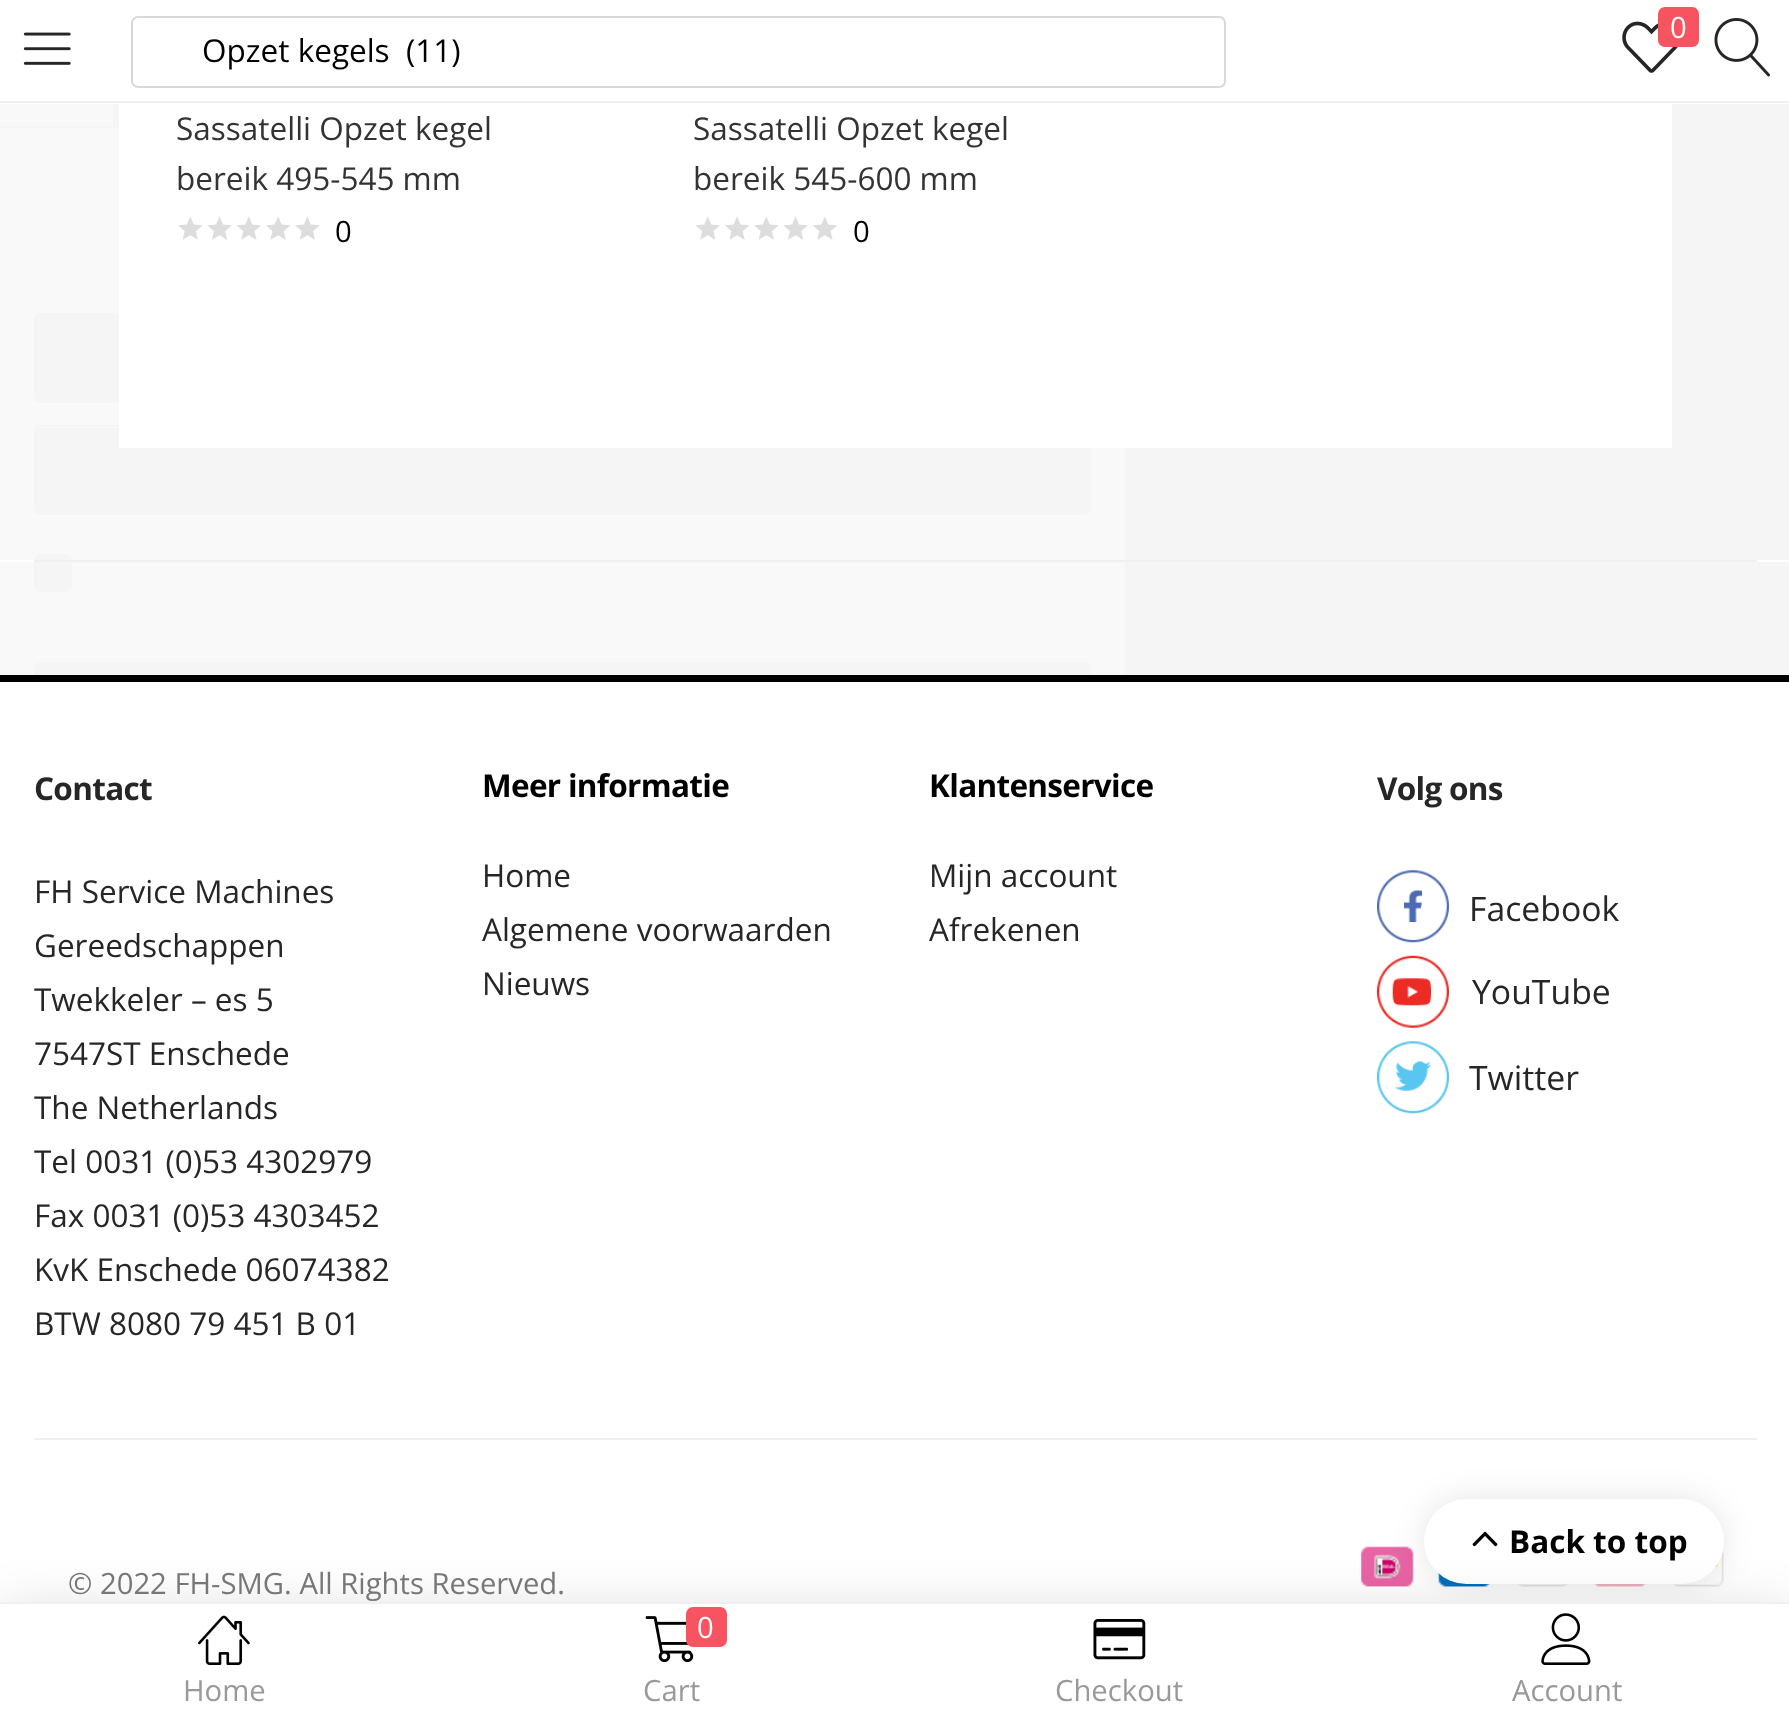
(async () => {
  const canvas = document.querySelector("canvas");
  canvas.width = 1789;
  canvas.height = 1717;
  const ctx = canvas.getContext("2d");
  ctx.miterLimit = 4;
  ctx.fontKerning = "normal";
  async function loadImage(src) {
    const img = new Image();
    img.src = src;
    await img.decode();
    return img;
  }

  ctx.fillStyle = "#f5f5f5";
  ctx.fillRect(0, 0, 1789, 1717);
  ctx.fillStyle = "#ffffff";
  ctx.fillRect(0, 0, 1789, 104);
  ctx.fillStyle = "#f0f0f0";
  ctx.fillRect(0, 101, 1789, 2);
  ctx.drawImage(await loadImage("img/1.png"), 1622, 21, 56, 52);
  ctx.fillStyle = "#f75361";
  ctx.beginPath();
  ctx.roundRect(1658, 7, 41, 40, 7);
  ctx.fill();
  ctx.drawImage(await loadImage("img/2.png"), 1714, 18, 56, 59);
  ctx.drawImage(await loadImage("img/3.png"), 23, 32, 48, 33);
  ctx.beginPath();
  ctx.roundRect(132, 17, 1093, 70, 6);
  ctx.strokeStyle = "#d9d9d9";
  ctx.lineWidth = 2;
  ctx.stroke();
  for (const [x, y, w, h, color] of [
    [0, 104, 1125, 571, "#f9f9f9"],
    [0, 126, 119, 2, "#f5f5f5"],
    [113, 104, 6, 22, "#f5f5f5"],
  ]) {
    ctx.fillStyle = color;
    ctx.fillRect(x, y, w, h);
  }
  ctx.beginPath();
  ctx.roundRect(35, 314, 1055, 88, 6);
  ctx.fill();
  ctx.strokeStyle = "#f5f5f5";
  ctx.stroke();
  ctx.beginPath();
  ctx.roundRect(36, 428, 1053, 85, 5);
  ctx.fill();
  ctx.beginPath();
  ctx.roundRect(35, 426, 1055, 88, 6);
  ctx.stroke();
  ctx.beginPath();
  ctx.roundRect(34, 554, 38, 38, 7);
  ctx.fill();
  ctx.beginPath();
  ctx.roundRect(34, 662, 1057, 90, 7);
  ctx.fill();
  ctx.fillStyle = "#ffffff";
  ctx.fillRect(119, 104, 1553, 344);
  ctx.drawImage(await loadImage("img/4.png"), 178, 216, 142, 24);
  ctx.drawImage(await loadImage("img/5.png"), 695, 216, 142, 24);
  for (const [x, y, w, h, color] of [
    [0, 560, 1789, 2, "#ffffff"],
    [34, 560, 1723, 2, "#f0f0f0"],
    [0, 682, 1789, 920, "#ffffff"],
    [0, 675, 1789, 7, "#000000"],
  ]) {
    ctx.fillStyle = color;
    ctx.fillRect(x, y, w, h);
  }
  ctx.drawImage(await loadImage("img/6.png"), 1377, 870, 72, 73);
  ctx.drawImage(await loadImage("img/7.png"), 1377, 955, 72, 73);
  ctx.drawImage(await loadImage("img/8.png"), 1377, 1041, 72, 73);
  ctx.fillStyle = "#f0f0f0";
  ctx.fillRect(34, 1438, 1723, 2);
  ctx.drawImage(await loadImage("img/9.png"), 1361, 1546, 363, 41);
  ctx.fillStyle = "rgba(0, 0, 0, 0.1)";
  ctx.filter = "blur(16px)";
  ctx.beginPath();
  ctx.roundRect(1424, 1499, 300, 85, 42.5);
  ctx.fill();
  ctx.filter = "none";
  ctx.fillStyle = "#ffffff";
  ctx.beginPath();
  ctx.roundRect(1424, 1499, 300, 85, 42.5);
  ctx.fill();
  ctx.drawImage(await loadImage("img/10.png"), 1472, 1531, 26, 16);
  ctx.fillStyle = "rgba(0, 0, 0, 0.1)";
  ctx.filter = "blur(22.5px)";
  ctx.beginPath();
  ctx.rect(0, 1602, 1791, 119);
  ctx.fill();
  ctx.filter = "none";
  ctx.fillStyle = "#ffffff";
  ctx.fillRect(0, 1604, 1789, 113);
  ctx.fillStyle = "#f0f0f0";
  ctx.fillRect(0, 1602, 1789, 2);
  ctx.drawImage(await loadImage("img/11.png"), 198, 1615, 52, 50);
  ctx.drawImage(await loadImage("img/12.png"), 645, 1616, 49, 47);
  ctx.fillStyle = "#f75361";
  ctx.beginPath();
  ctx.roundRect(686, 1607, 41, 40, 7);
  ctx.fill();
  ctx.drawImage(await loadImage("img/13.png"), 1093, 1619, 53, 41);
  ctx.drawImage(await loadImage("img/14.png"), 1541, 1613, 50, 52);
  ctx.font = "29.25px Open Sans";
  ctx.fillStyle = "#ffffff";
  ctx.fillText("0", 1670, 38);
  ctx.font = "31.5px Open Sans";
  ctx.fillStyle = "#000000";
  ctx.fillText("Opzet kegels  (11)", 202, 62);
  ctx.fillStyle = "#333333";
  ctx.fillText("Sassatelli Opzet kegel", 176, 140);
  ctx.fillText("bereik 495-545 mm", 176, 190);
  ctx.font = "29.25px Open Sans";
  ctx.fillStyle = "#000000";
  ctx.fillText("0", 335, 242);
  ctx.font = "31.5px Open Sans";
  ctx.fillStyle = "#333333";
  ctx.fillText("Sassatelli Opzet kegel", 693, 140);
  ctx.fillText("bereik 545-600 mm", 693, 190);
  ctx.font = "29.25px Open Sans";
  ctx.fillStyle = "#000000";
  ctx.fillText("0", 853, 242);
  ctx.letterSpacing = "-0.7px";
  ctx.font = "bold 31.5px Open Sans";
  ctx.fillStyle = "#262626";
  ctx.fillText("Contact", 34, 800);
  ctx.letterSpacing = "0px";
  ctx.font = "31.5px Open Sans";
  for (const [text, x, y] of [
    ["FH Service Machines", 34, 903],
    ["Gereedschappen", 34, 957],
    ["Twekkeler – es 5", 34, 1011],
    ["7547ST Enschede", 34, 1065],
    ["The Netherlands", 34, 1119],
    ["Tel 0031 (0)53 4302979", 34, 1173],
    ["Fax 0031 (0)53 4303452", 34, 1227],
    ["KvK Enschede 06074382", 34, 1281],
    ["BTW 8080 79 451 B 01", 34, 1335],
  ]) {
    ctx.fillText(text, x, y);
  }
  ctx.letterSpacing = "-0.7px";
  ctx.font = "bold 31.5px Open Sans";
  ctx.fillStyle = "#000000";
  ctx.fillText("Meer informatie", 482, 797);
  ctx.letterSpacing = "0px";
  ctx.font = "31.5px Open Sans";
  ctx.fillStyle = "#262626";
  for (const [text, x, y] of [
    ["Home", 482, 887],
    ["Algemene voorwaarden", 482, 941],
    ["Nieuws", 482, 995],
  ]) {
    ctx.fillText(text, x, y);
  }
  ctx.letterSpacing = "-0.7px";
  ctx.font = "bold 31.5px Open Sans";
  ctx.fillStyle = "#000000";
  ctx.fillText("Klantenservice", 929, 797);
  ctx.letterSpacing = "0px";
  ctx.font = "31.5px Open Sans";
  ctx.fillStyle = "#262626";
  ctx.fillText("Mijn account", 929, 887);
  ctx.fillText("Afrekenen", 929, 941);
  ctx.letterSpacing = "-0.7px";
  ctx.font = "bold 31.5px Open Sans";
  ctx.fillText("Volg ons", 1377, 800);
  ctx.letterSpacing = "0px";
  ctx.font = "33.75px Open Sans";
  for (const [text, x, y] of [
    ["Facebook", 1469, 921],
    ["YouTube", 1472, 1004],
    ["Twitter", 1469, 1090],
  ]) {
    ctx.fillText(text, x, y);
  }
  ctx.font = "29.25px Open Sans";
  ctx.fillStyle = "#777777";
  ctx.fillText("© 2022 FH-SMG. All Rights Reserved.", 68, 1594);
  ctx.font = "bold 31.5px Open Sans";
  ctx.fillStyle = "#000000";
  ctx.fillText("Back to top", 1509, 1553);
  ctx.font = "29.25px Open Sans";
  ctx.fillStyle = "#999999";
  ctx.fillText("Home", 183, 1701);
  ctx.fillStyle = "#ffffff";
  ctx.fillText("0", 697, 1638);
  ctx.fillStyle = "#999999";
  for (const [text, x, y] of [
    ["Cart", 643, 1701],
    ["Checkout", 1055, 1701],
    ["Account", 1512, 1701],
  ]) {
    ctx.fillText(text, x, y);
  }
})();
